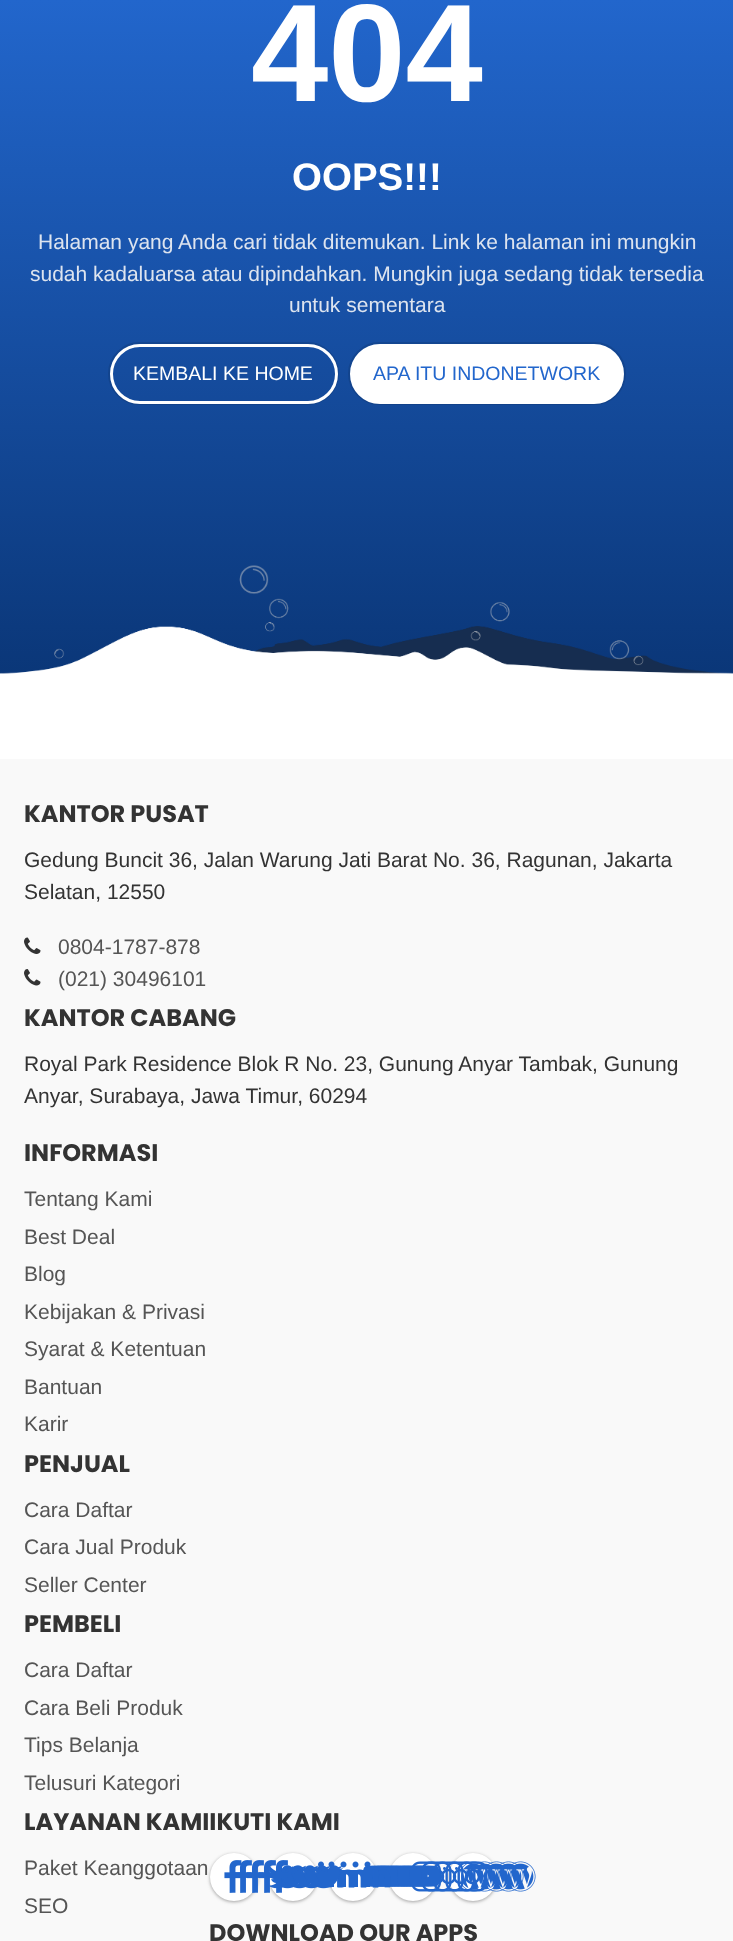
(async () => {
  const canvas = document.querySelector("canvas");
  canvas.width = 733;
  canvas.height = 1941;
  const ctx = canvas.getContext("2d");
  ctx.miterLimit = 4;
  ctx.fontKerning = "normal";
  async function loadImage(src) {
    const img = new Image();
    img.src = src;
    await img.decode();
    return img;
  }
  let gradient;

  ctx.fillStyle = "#ffffff";
  ctx.fillRect(0, 0, 733, 1941);
  gradient = ctx.createLinearGradient(367, -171, 367, 684);
  gradient.addColorStop(0.2, "#2266cc");
  gradient.addColorStop(1, "#0a3677");
  ctx.fillStyle = gradient;
  ctx.fillRect(0, 0, 733, 674);
  ctx.beginPath();
  ctx.roundRect(109, 343, 229, 61, 30.5);
  ctx.strokeStyle = "rgba(0, 0, 0, 0.1)";
  ctx.lineWidth = 2;
  ctx.stroke();
  ctx.beginPath();
  ctx.roundRect(111.5, 345.5, 225, 57, 28.5);
  ctx.strokeStyle = "#ffffff";
  ctx.lineWidth = 3;
  ctx.stroke();
  ctx.beginPath();
  ctx.roundRect(349, 343, 276, 61, 30.5);
  ctx.strokeStyle = "rgba(0, 0, 0, 0.1)";
  ctx.lineWidth = 2;
  ctx.stroke();
  ctx.fillStyle = "#ffffff";
  ctx.beginPath();
  ctx.roundRect(351.5, 345.5, 271, 57, 28.5);
  ctx.fill();
  ctx.strokeStyle = "#ffffff";
  ctx.lineWidth = 3;
  ctx.stroke();
  ctx.drawImage(await loadImage("img/1.png"), 0, 565, 733, 119);
  ctx.fillStyle = "#f9f9f9";
  ctx.fillRect(0, 759, 733, 1182);
  ctx.drawImage(await loadImage("img/2.png"), 24, 937, 17, 17);
  ctx.drawImage(await loadImage("img/3.png"), 24, 969, 17, 17);
  ctx.fillStyle = "rgba(0, 0, 0, 0.24)";
  ctx.filter = "blur(1.5px)";
  ctx.beginPath();
  ctx.roundRect(210, 1854, 48, 48, 24);
  ctx.fill();
  ctx.filter = "none";
  ctx.fillStyle = "rgba(0, 0, 0, 0.12)";
  ctx.filter = "blur(2px)";
  ctx.beginPath();
  ctx.roundRect(210, 1854, 48, 48, 24);
  ctx.fill();
  ctx.filter = "none";
  ctx.fillStyle = "#ffffff";
  ctx.beginPath();
  ctx.arc(234, 1877, 24, 0, Math.PI * 2);
  ctx.fill();
  ctx.fillStyle = "rgba(0, 0, 0, 0.24)";
  ctx.filter = "blur(1.5px)";
  ctx.beginPath();
  ctx.roundRect(269, 1854, 48, 48, 24);
  ctx.fill();
  ctx.filter = "none";
  ctx.fillStyle = "rgba(0, 0, 0, 0.12)";
  ctx.filter = "blur(2px)";
  ctx.beginPath();
  ctx.roundRect(269, 1854, 48, 48, 24);
  ctx.fill();
  ctx.filter = "none";
  ctx.fillStyle = "#ffffff";
  ctx.beginPath();
  ctx.arc(293, 1877, 24, 0, Math.PI * 2);
  ctx.fill();
  ctx.fillStyle = "rgba(0, 0, 0, 0.24)";
  ctx.filter = "blur(1.5px)";
  ctx.beginPath();
  ctx.roundRect(329, 1854, 48, 48, 24);
  ctx.fill();
  ctx.filter = "none";
  ctx.fillStyle = "rgba(0, 0, 0, 0.12)";
  ctx.filter = "blur(2px)";
  ctx.beginPath();
  ctx.roundRect(329, 1854, 48, 48, 24);
  ctx.fill();
  ctx.filter = "none";
  ctx.fillStyle = "#ffffff";
  ctx.beginPath();
  ctx.arc(353, 1877, 24, 0, Math.PI * 2);
  ctx.fill();
  ctx.fillStyle = "rgba(0, 0, 0, 0.24)";
  ctx.filter = "blur(1.5px)";
  ctx.beginPath();
  ctx.roundRect(389, 1854, 48, 48, 24);
  ctx.fill();
  ctx.filter = "none";
  ctx.fillStyle = "rgba(0, 0, 0, 0.12)";
  ctx.filter = "blur(2px)";
  ctx.beginPath();
  ctx.roundRect(389, 1854, 48, 48, 24);
  ctx.fill();
  ctx.filter = "none";
  ctx.fillStyle = "#ffffff";
  ctx.beginPath();
  ctx.arc(413, 1877, 24, 0, Math.PI * 2);
  ctx.fill();
  ctx.fillStyle = "rgba(0, 0, 0, 0.24)";
  ctx.filter = "blur(1.5px)";
  ctx.beginPath();
  ctx.roundRect(449, 1854, 48, 48, 24);
  ctx.fill();
  ctx.filter = "none";
  ctx.fillStyle = "rgba(0, 0, 0, 0.12)";
  ctx.filter = "blur(2px)";
  ctx.beginPath();
  ctx.roundRect(449, 1854, 48, 48, 24);
  ctx.fill();
  ctx.filter = "none";
  ctx.fillStyle = "#ffffff";
  ctx.beginPath();
  ctx.arc(473, 1877, 24, 0, Math.PI * 2);
  ctx.fill();
  ctx.drawImage(await loadImage("img/4.png"), 224, 1860, 265, 33);
  ctx.drawImage(await loadImage("img/5.png"), 235, 1860, 265, 33);
  ctx.drawImage(await loadImage("img/6.png"), 247, 1860, 265, 33);
  ctx.drawImage(await loadImage("img/7.png"), 259, 1860, 265, 33);
  ctx.drawImage(await loadImage("img/8.png"), 271, 1860, 265, 33);
  ctx.font = "bold 139px Liberation Sans";
  ctx.fillText("404", 251, 101);
  ctx.font = "bold 38.5px Liberation Sans";
  ctx.fillText("OOPS!!!", 292, 190);
  ctx.font = "21px Liberation Sans";
  ctx.fillStyle = "#dde4ef";
  for (const [text, x, y] of [
    ["Halaman yang Anda cari tidak ditemukan. Link ke halaman ini mungkin", 38, 249],
    ["sudah kadaluarsa atau dipindahkan. Mungkin juga sedang tidak tersedia", 30, 281],
    ["untuk sementara", 289, 312],
  ]) {
    ctx.fillText(text, x, y);
  }
  ctx.font = "19.5px Liberation Sans";
  ctx.fillStyle = "#ffffff";
  ctx.fillText("KEMBALI KE HOME", 133, 380);
  ctx.fillStyle = "#2266cc";
  ctx.fillText("APA ITU INDONETWORK", 373, 380);
  ctx.font = "bold 24px Poppins";
  ctx.fillStyle = "#333333";
  ctx.fillText("KANTOR PUSAT", 24, 822);
  ctx.font = "21px Liberation Sans";
  ctx.fillText("Gedung Buncit 36, Jalan Warung Jati Barat No. 36, Ragunan, Jakarta", 24, 867);
  ctx.fillText("Selatan, 12550", 24, 899);
  ctx.fillStyle = "#555555";
  ctx.fillText("0804-1787-878", 58, 954);
  ctx.fillText("(021) 30496101", 58, 986);
  ctx.font = "bold 24px Poppins";
  ctx.fillStyle = "#333333";
  ctx.fillText("KANTOR CABANG", 24, 1026);
  ctx.font = "21px Liberation Sans";
  ctx.fillText("Royal Park Residence Blok R No. 23, Gunung Anyar Tambak, Gunung", 24, 1071);
  ctx.fillText("Anyar, Surabaya, Jawa Timur, 60294", 24, 1103);
  ctx.font = "bold 24px Poppins";
  ctx.fillText("INFORMASI", 24, 1161);
  ctx.font = "21px Liberation Sans";
  ctx.fillStyle = "#555555";
  for (const [text, x, y] of [
    ["Tentang Kami", 24, 1206],
    ["Best Deal", 24, 1244],
    ["Blog", 24, 1281],
    ["Kebijakan & Privasi", 24, 1319],
    ["Syarat & Ketentuan", 24, 1356],
    ["Bantuan", 24, 1394],
    ["Karir", 24, 1431],
  ]) {
    ctx.fillText(text, x, y);
  }
  ctx.font = "bold 24px Poppins";
  ctx.fillStyle = "#333333";
  ctx.fillText("PENJUAL", 24, 1472);
  ctx.font = "21px Liberation Sans";
  ctx.fillStyle = "#555555";
  for (const [text, x, y] of [
    ["Cara Daftar", 24, 1517],
    ["Cara Jual Produk", 24, 1554],
    ["Seller Center", 24, 1592],
  ]) {
    ctx.fillText(text, x, y);
  }
  ctx.font = "bold 24px Poppins";
  ctx.fillStyle = "#333333";
  ctx.fillText("PEMBELI", 24, 1632);
  ctx.font = "21px Liberation Sans";
  ctx.fillStyle = "#555555";
  for (const [text, x, y] of [
    ["Cara Daftar", 24, 1677],
    ["Cara Beli Produk", 24, 1715],
    ["Tips Belanja", 24, 1752],
    ["Telusuri Kategori", 24, 1790],
  ]) {
    ctx.fillText(text, x, y);
  }
  ctx.font = "bold 24px Poppins";
  ctx.fillStyle = "#333333";
  ctx.fillText("LAYANAN KAMIIKUTI KAMI", 24, 1830);
  ctx.font = "21px Liberation Sans";
  ctx.fillStyle = "#555555";
  ctx.fillText("Paket Keanggotaan", 24, 1875);
  ctx.fillText("SEO", 24, 1913);
  ctx.font = "bold 24px Poppins";
  ctx.fillStyle = "#333333";
  ctx.fillText("DOWNLOAD OUR APPS", 209, 1941);
})();
